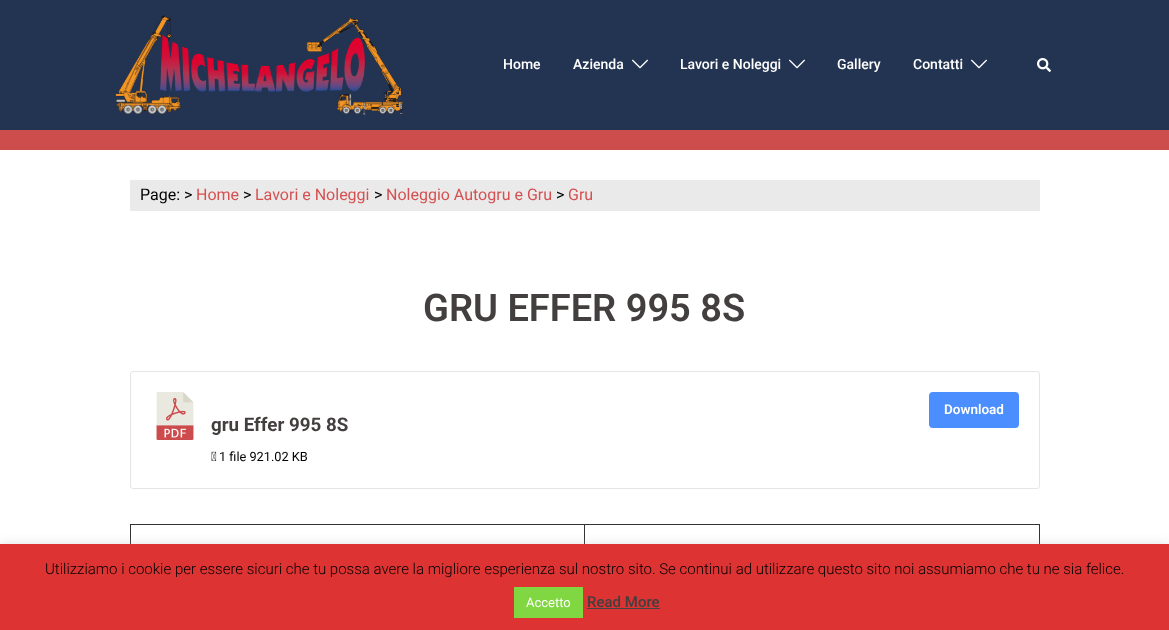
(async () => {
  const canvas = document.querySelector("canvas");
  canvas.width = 1169;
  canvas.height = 630;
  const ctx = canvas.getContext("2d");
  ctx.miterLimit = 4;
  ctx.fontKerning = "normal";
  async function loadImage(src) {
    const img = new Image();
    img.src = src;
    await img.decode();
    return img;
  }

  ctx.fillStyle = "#ffffff";
  ctx.fillRect(0, 0, 1169, 630);
  ctx.fillStyle = "#cd4d4d";
  ctx.fillRect(0, 130, 1169, 20);
  ctx.fillStyle = "#233452";
  ctx.fillRect(0, 0, 1169, 130);
  ctx.drawImage(await loadImage("img/1.png"), 115, 15, 288, 100);
  ctx.drawImage(await loadImage("img/2.png"), 632, 59, 16, 10);
  ctx.drawImage(await loadImage("img/2.png"), 789, 59, 16, 10);
  ctx.drawImage(await loadImage("img/2.png"), 971, 59, 16, 10);
  ctx.drawImage(await loadImage("img/3.png"), 1037, 58, 14, 14);
  ctx.fillStyle = "#eaeaea";
  ctx.fillRect(130, 180, 910, 31);
  ctx.beginPath();
  ctx.roundRect(130.5, 371.5, 909, 117, 2.5);
  ctx.strokeStyle = "#e5e5e5";
  ctx.stroke();
  ctx.drawImage(await loadImage("img/4.png"), 156, 392, 38, 48);
  ctx.fillStyle = "#4a8eff";
  ctx.beginPath();
  ctx.roundRect(929, 392, 90, 36, 4);
  ctx.fill();
  ctx.drawImage(await loadImage("img/5.png"), 211, 451, 6, 10);
  for (const [x, y, w, h, color] of [
    [584, 524, 456, 1, "#333333"],
    [584, 524, 1, 20, "#333333"],
    [130, 524, 455, 1, "#333333"],
    [130, 524, 1, 20, "#333333"],
    [1039, 524, 1, 20, "#333333"],
  ]) {
    ctx.fillStyle = color;
    ctx.fillRect(x, y, w, h);
  }
  ctx.fillStyle = "rgba(172, 171, 171, 0.3)";
  ctx.filter = "blur(5px)";
  ctx.beginPath();
  ctx.rect(0, 543, 1169, 86);
  ctx.fill();
  ctx.filter = "none";
  for (const [x, y, w, h, color] of [
    [0, 544, 1169, 86, "#dd3333"],
    [514, 587, 69, 31, "#81d742"],
    [587, 608, 73, 1, "#444444"],
  ]) {
    ctx.fillStyle = color;
    ctx.fillRect(x, y, w, h);
  }
  ctx.font = "500 14px Roboto";
  ctx.fillStyle = "#ffffff";
  for (const [text, x, y] of [
    ["Home", 503, 69],
    ["Azienda", 573, 69],
    ["Lavori e Noleggi", 680, 69],
    ["Gallery", 837, 69],
    ["Contatti", 913, 69],
  ]) {
    ctx.fillText(text, x, y);
  }
  ctx.font = "16px Roboto";
  ctx.fillStyle = "#000000";
  ctx.fillText("Page: >", 140, 200);
  ctx.fillStyle = "#d65050";
  ctx.fillText("Home", 196, 200);
  ctx.fillStyle = "#000000";
  ctx.fillText(">", 243, 200);
  ctx.fillStyle = "#d65050";
  ctx.fillText("Lavori e Noleggi", 255, 200);
  ctx.fillStyle = "#000000";
  ctx.fillText(">", 374, 200);
  ctx.fillStyle = "#d65050";
  ctx.fillText("Noleggio Autogru e Gru", 386, 200);
  ctx.fillStyle = "#000000";
  ctx.fillText(">", 556, 200);
  ctx.fillStyle = "#d65050";
  ctx.fillText("Gru", 568, 200);
  ctx.font = "600 38px Roboto";
  ctx.fillStyle = "#443f3f";
  ctx.fillText("GRU EFFER 995 8S", 423, 321);
  ctx.font = "600 13.5px Roboto";
  ctx.fillStyle = "#ffffff";
  ctx.fillText("Download", 944, 414);
  ctx.font = "bold 18.75px Roboto";
  ctx.fillStyle = "#443f3f";
  ctx.fillText("gru Effer 995 8S", 211, 431);
  ctx.font = "12.75px Roboto";
  ctx.fillStyle = "#000000";
  ctx.fillText("1 file 921.02 KB", 219, 461);
  ctx.font = "300 15px Roboto";
  ctx.fillText("Utilizziamo i cookie per essere sicuri che tu possa avere la migliore esperienza sul nostro sito. Se continui ad utilizzare questo sito noi assumiamo che tu ne sia felice.", 45, 574);
  ctx.font = "13px Roboto";
  ctx.fillStyle = "#ffffff";
  ctx.fillText("Accetto", 526, 607);
  ctx.font = "500 15px 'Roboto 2'";
  ctx.fillStyle = "#443f3f";
  ctx.fillText("Read More", 587, 607);
})();
